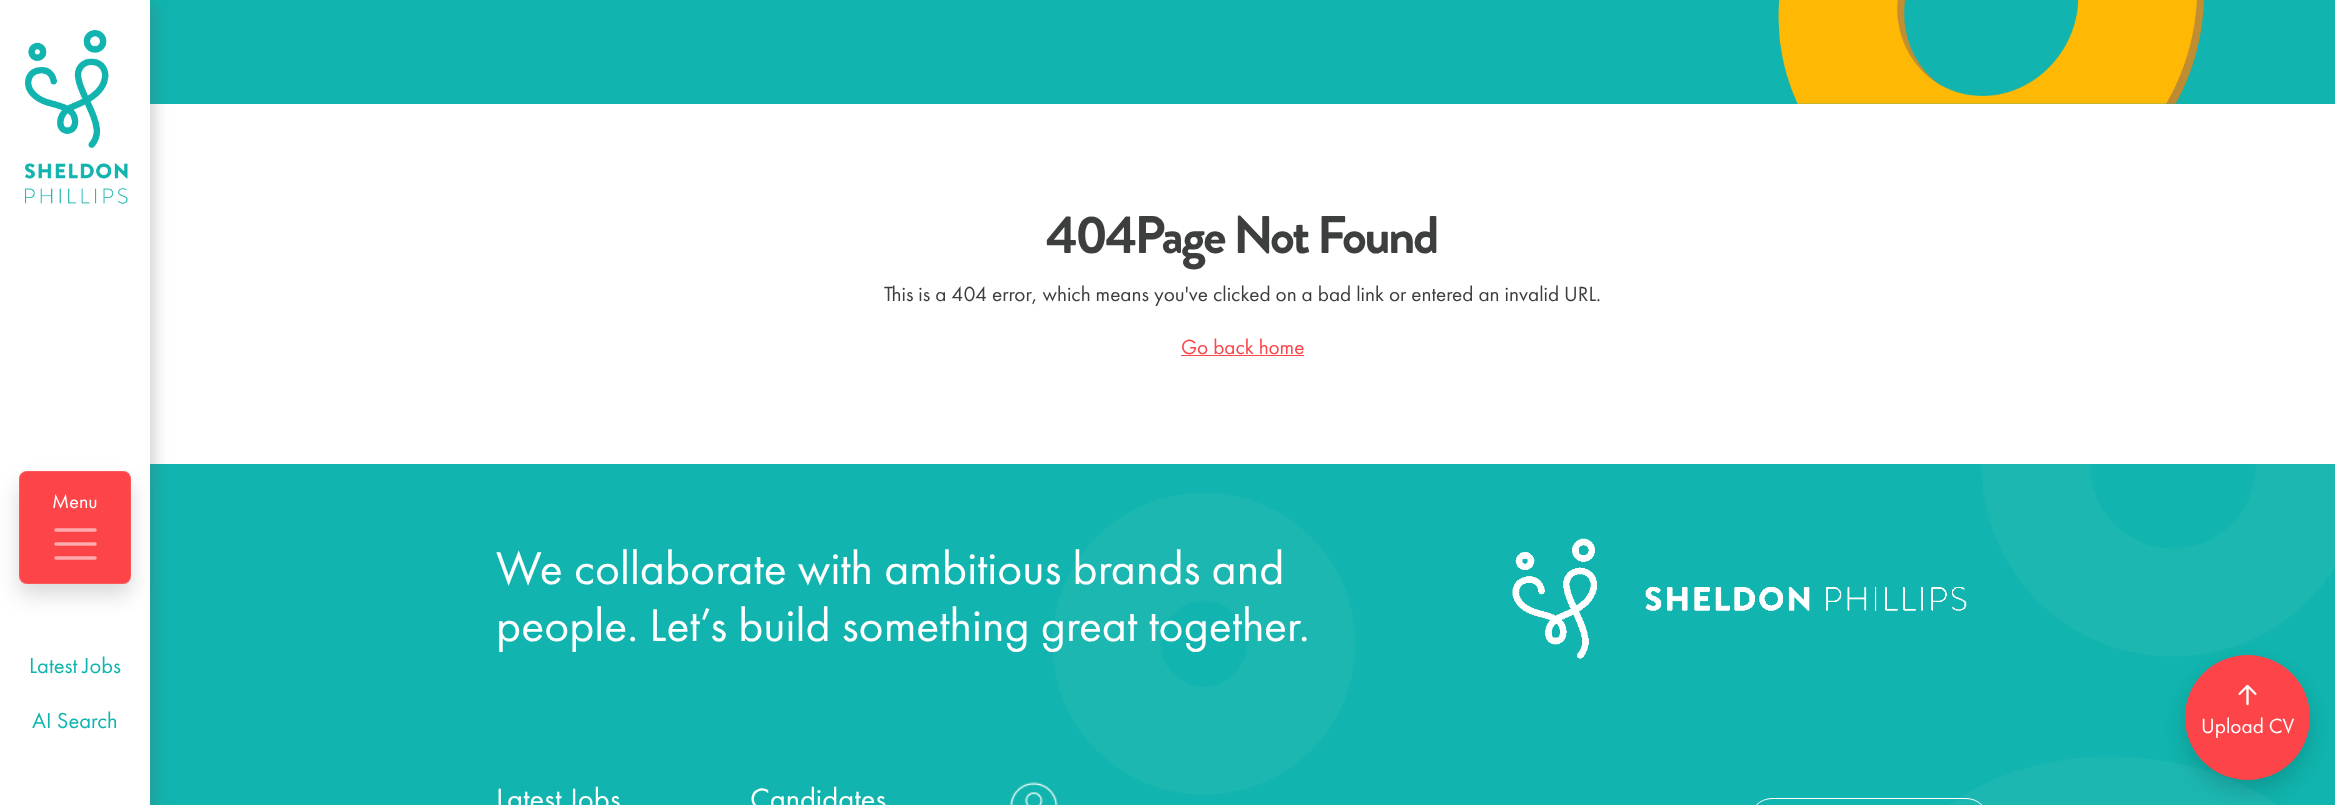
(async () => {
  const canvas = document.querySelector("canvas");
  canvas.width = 2335;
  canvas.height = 805;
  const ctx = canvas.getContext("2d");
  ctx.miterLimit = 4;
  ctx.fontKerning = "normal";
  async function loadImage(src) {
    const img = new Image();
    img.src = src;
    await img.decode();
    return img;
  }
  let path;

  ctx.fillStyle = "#ffffff";
  ctx.fillRect(0, 0, 2335, 805);
  ctx.fillStyle = "#11b4ae";
  ctx.fillRect(150, 0, 2185, 104);
  ctx.drawImage(await loadImage("img/1.png"), 1778, 0, 427, 104);
  ctx.fillStyle = "#fd4448";
  ctx.fillRect(1181, 355, 123, 1);
  ctx.fillStyle = "#11b4ae";
  ctx.fillRect(150, 464, 2185, 341);
  ctx.fillStyle = "rgba(95, 95, 95, 0.25)";
  ctx.filter = "blur(7px)";
  ctx.beginPath();
  ctx.rect(6, 5, 150, 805);
  ctx.fill();
  ctx.filter = "none";
  ctx.fillStyle = "#ffffff";
  ctx.fillRect(0, 0, 150, 805);
  ctx.drawImage(await loadImage("img/2.png"), 25, 30, 103, 174);
  ctx.fillStyle = "rgba(0, 0, 0, 0.15)";
  ctx.filter = "blur(10.5px)";
  ctx.beginPath();
  ctx.roundRect(19, 483, 112, 112, 8);
  ctx.fill();
  ctx.filter = "none";
  ctx.fillStyle = "#fd4448";
  ctx.beginPath();
  ctx.roundRect(19, 471, 112, 113, 8);
  ctx.fill();
  ctx.beginPath();
  ctx.roundRect(19.5, 471.5, 111, 112, 7.5);
  ctx.strokeStyle = "rgba(255, 255, 255, 0.1)";
  ctx.stroke();
  path = new Path2D("M56 530H95M56 544H95M56 558H95");
  ctx.strokeStyle = "#feabad";
  ctx.lineWidth = 3.5;
  ctx.lineCap = "round";
  ctx.stroke(path);
  ctx.drawImage(await loadImage("img/5.png"), 1052, 464, 1283, 341);
  ctx.drawImage(await loadImage("img/3.png"), 1512, 538, 455, 121);
  ctx.drawImage(await loadImage("img/4.png"), 1009, 782, 49, 23);
  ctx.beginPath();
  ctx.roundRect(1749.5, 798.5, 239, 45, 37);
  ctx.strokeStyle = "#ffffff";
  ctx.lineWidth = 1;
  ctx.stroke();
  ctx.fillStyle = "rgba(0, 0, 0, 0.15)";
  ctx.filter = "blur(10.5px)";
  ctx.beginPath();
  ctx.roundRect(2185, 666, 125, 125, 62.5);
  ctx.fill();
  ctx.filter = "none";
  ctx.fillStyle = "#fd4448";
  ctx.beginPath();
  ctx.arc(2247.5, 717.5, 62.5, 0, Math.PI * 2);
  ctx.fill();
  ctx.drawImage(await loadImage("img/6.png"), 2238, 684, 19, 22);
  ctx.letterSpacing = "-2.7px";
  ctx.font = "bold 53px Brandon Grotesque";
  ctx.fillStyle = "#3d3f3f";
  ctx.fillText("404Page Not Found", 1046, 253);
  ctx.letterSpacing = "0px";
  ctx.font = "21.25px Futura PT";
  ctx.fillText("This is a 404 error, which means you've clicked on a bad link or entered an invalid URL.", 884, 301);
  ctx.fillStyle = "#fd4448";
  ctx.fillText("Go back home", 1181, 354);
  ctx.font = "20px Futura PT";
  ctx.fillStyle = "#ffffff";
  ctx.fillText("Menu", 52, 508);
  ctx.font = "22.5px Futura PT";
  ctx.fillStyle = "#11b4ae";
  ctx.fillText("Latest Jobs", 29, 673);
  ctx.fillText("AI Search", 32, 728);
  ctx.font = "47.8px Futura PT";
  ctx.fillStyle = "#ffffff";
  ctx.fillText("We collaborate with ambitious brands and", 496, 584);
  ctx.fillText("people. Let’s build something great together.", 496, 641);
  ctx.font = "30.5px Futura PT";
  ctx.fillText("Latest Jobs", 496, 809);
  ctx.fillText("Candidates", 750, 809);
  ctx.font = "21.25px Futura PT";
  ctx.fillText("Upload CV", 2201, 733);
})();
